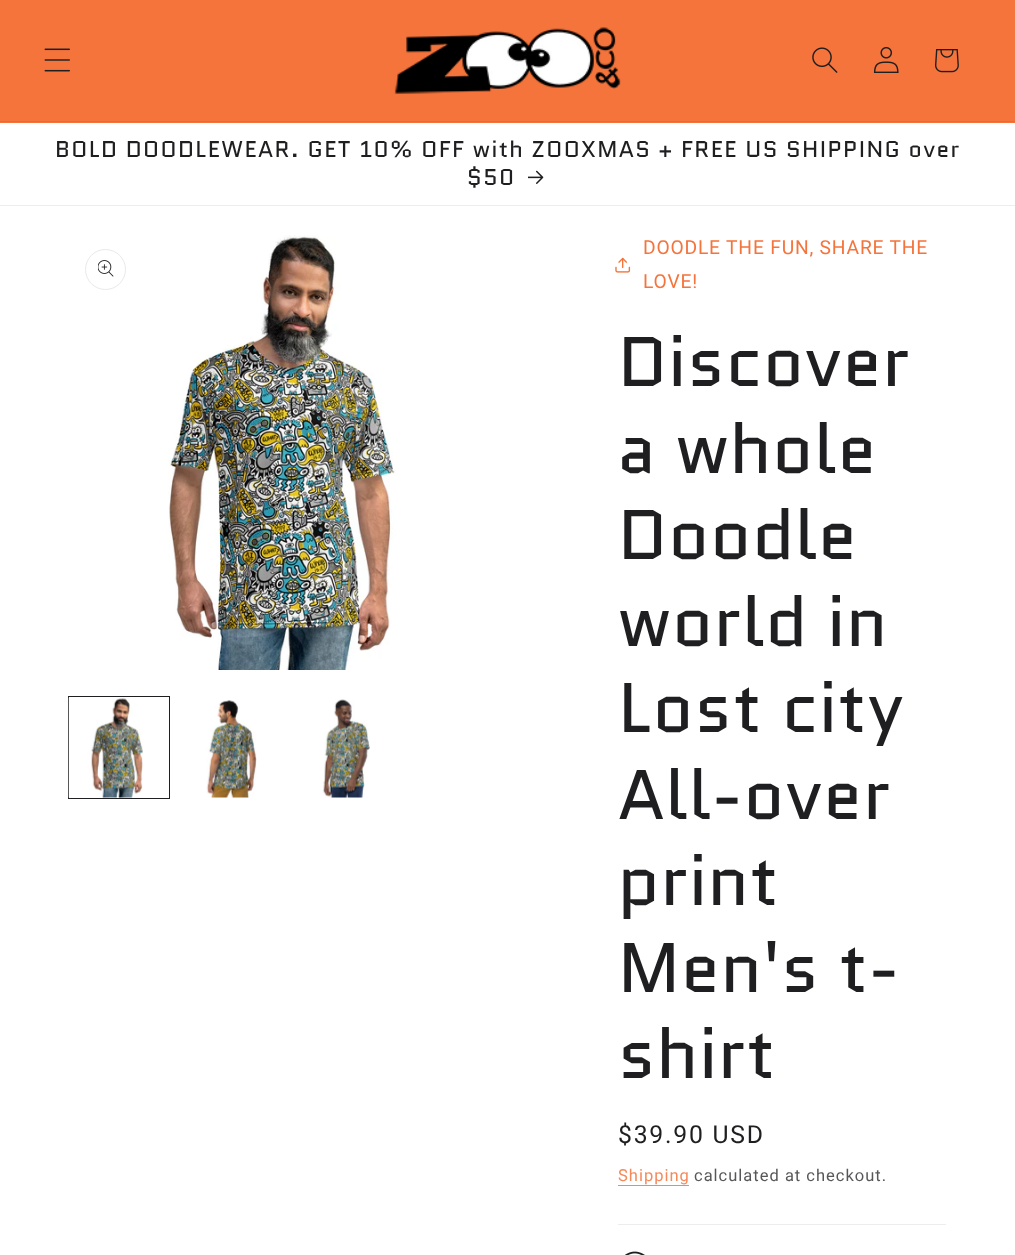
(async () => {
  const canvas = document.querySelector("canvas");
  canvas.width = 1015;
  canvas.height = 1255;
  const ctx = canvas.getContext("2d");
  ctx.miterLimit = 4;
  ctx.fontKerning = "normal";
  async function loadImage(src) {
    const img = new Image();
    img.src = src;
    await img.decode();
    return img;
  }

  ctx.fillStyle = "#ffffff";
  ctx.fillRect(0, 0, 1015, 1255);
  ctx.fillStyle = "#f4743c";
  ctx.fillRect(0, 0, 1015, 123);
  ctx.fillStyle = "#e36d3a";
  ctx.fillRect(0, 121, 1015, 1);
  ctx.drawImage(await loadImage("img/1.png"), 44, 48, 26, 24);
  ctx.drawImage(await loadImage("img/2.png"), 394, 27, 227, 67);
  ctx.drawImage(await loadImage("img/3.png"), 812, 47, 26, 26);
  ctx.drawImage(await loadImage("img/4.png"), 873, 47, 26, 26);
  ctx.drawImage(await loadImage("img/5.png"), 935, 49, 24, 24);
  ctx.fillStyle = "#ededed";
  ctx.fillRect(0, 205, 1015, 1);
  ctx.drawImage(await loadImage("img/6.png"), 528, 170, 16, 14);
  ctx.beginPath();
  ctx.arc(105.5, 269.5, 20, 0, Math.PI * 2);
  ctx.strokeStyle = "#e9e9e9";
  ctx.stroke();
  ctx.drawImage(await loadImage("img/7.png"), 98, 260, 16, 17);
  ctx.drawImage(await loadImage("img/8.png"), 168, 235, 228, 435);
  ctx.strokeStyle = "#1f1f21";
  ctx.strokeRect(68.5, 696.5, 101, 102);
  ctx.drawImage(await loadImage("img/9.png"), 68, 697, 75, 101);
  ctx.drawImage(await loadImage("img/10.png"), 206, 700, 51, 98);
  ctx.drawImage(await loadImage("img/11.png"), 322, 699, 48, 99);
  ctx.drawImage(await loadImage("img/12.png"), 615, 257, 16, 16);
  ctx.fillStyle = "#f68959";
  ctx.fillRect(618, 1185, 71, 1);
  ctx.fillStyle = "#ededed";
  ctx.fillRect(618, 1224, 328, 1);
  ctx.drawImage(await loadImage("img/13.png"), 625, 1251, 20, 4);
  ctx.letterSpacing = "1.38px";
  ctx.font = "22.75px Quantico";
  ctx.fillStyle = "#1f1f21";
  ctx.fillText("BOLD DOODLEWEAR. GET 10% OFF with ZOOXMAS + FREE US SHIPPING over", 55, 157);
  ctx.fillText("$50", 467, 185);
  ctx.letterSpacing = "0.8px";
  ctx.font = "19.25px Roboto";
  ctx.fillStyle = "#f4743c";
  ctx.fillText("DOODLE THE FUN, SHARE THE", 643, 254);
  ctx.fillText("LOVE!", 643, 288);
  ctx.letterSpacing = "1px";
  ctx.font = "70px Quantico";
  ctx.fillStyle = "#1f1f21";
  for (const [text, x, y] of [
    ["Discover", 618, 386],
    ["a whole", 618, 473],
    ["Doodle", 618, 559],
    ["world in", 618, 646],
    ["Lost city", 618, 732],
    ["All-over", 618, 819],
    ["print", 618, 905],
    ["Men's t-", 618, 992],
    ["shirt", 618, 1078],
  ]) {
    ctx.fillText(text, x, y);
  }
  ctx.letterSpacing = "1.75px";
  ctx.font = "24.75px Roboto";
  ctx.fillText("$39.90 USD", 618, 1143);
  ctx.letterSpacing = "1px";
  ctx.font = "16.5px Roboto";
  ctx.fillStyle = "#f68959";
  ctx.fillText("Shipping", 618, 1181);
  ctx.fillStyle = "#575759";
  ctx.fillText("calculated at checkout.", 694, 1181);
})();
